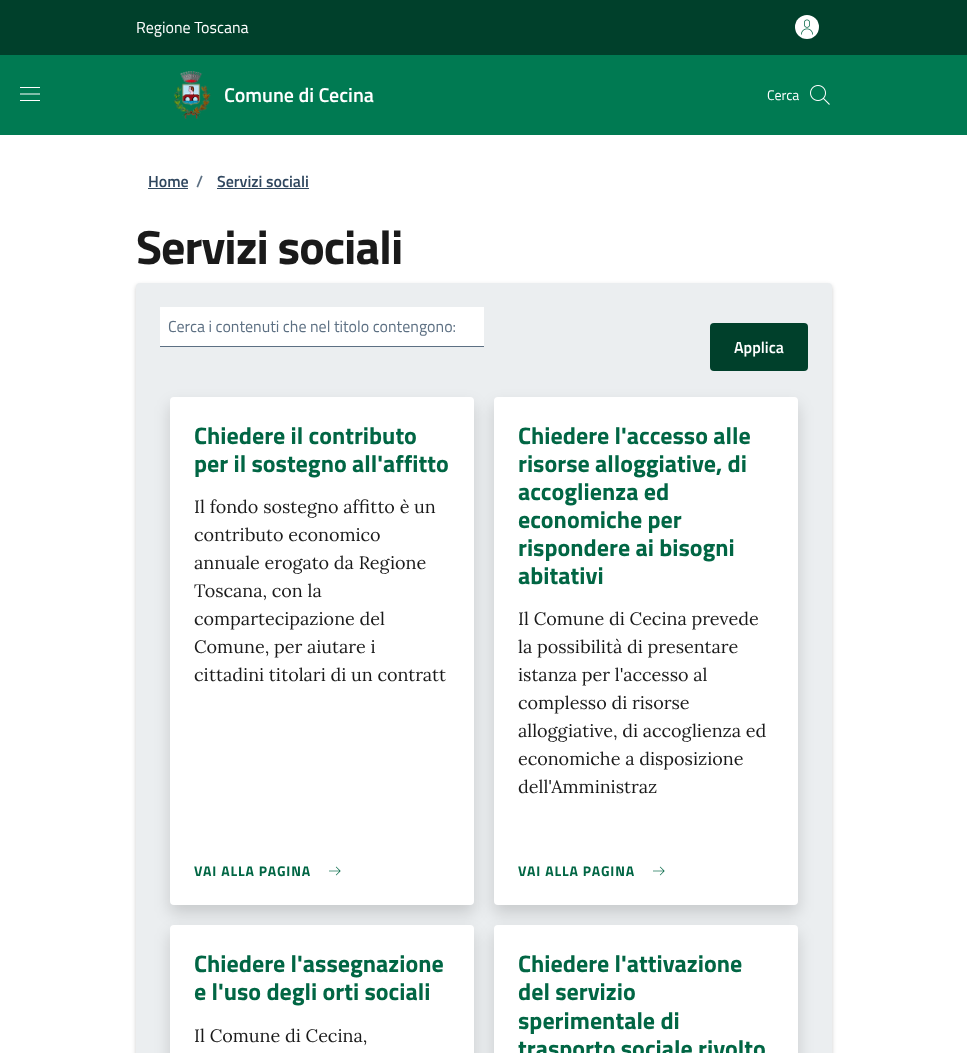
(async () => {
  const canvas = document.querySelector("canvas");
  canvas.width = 967;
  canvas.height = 1053;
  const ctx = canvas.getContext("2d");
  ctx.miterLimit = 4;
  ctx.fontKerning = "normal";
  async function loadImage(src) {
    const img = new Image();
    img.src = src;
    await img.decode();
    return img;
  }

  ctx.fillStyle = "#ffffff";
  ctx.fillRect(0, 0, 967, 1053);
  ctx.fillStyle = "#00402b";
  ctx.fillRect(0, 0, 967, 55);
  ctx.fillStyle = "#ffffff";
  ctx.beginPath();
  ctx.arc(807, 27, 12, 0, Math.PI * 2);
  ctx.fill();
  ctx.drawImage(await loadImage("img/1.png"), 801, 19, 12, 16);
  ctx.fillStyle = "#007a52";
  ctx.fillRect(0, 55, 967, 80);
  ctx.drawImage(await loadImage("img/2.png"), 20, 87, 20, 14);
  ctx.drawImage(await loadImage("img/3.png"), 173, 71, 38, 48);
  ctx.drawImage(await loadImage("img/4.png"), 810, 85, 20, 20);
  ctx.fillStyle = "#30475f";
  ctx.fillRect(148, 188, 40, 1);
  ctx.fillRect(217, 188, 92, 1);
  ctx.fillStyle = "rgba(0, 0, 0, 0.2)";
  ctx.filter = "blur(2px)";
  ctx.beginPath();
  ctx.roundRect(136, 285, 696, 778, 4);
  ctx.fill();
  ctx.filter = "none";
  ctx.fillStyle = "#ebeef0";
  ctx.beginPath();
  ctx.roundRect(136, 283, 696, 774, 4);
  ctx.fill();
  ctx.fillStyle = "#ffffff";
  ctx.fillRect(160, 307, 324, 39);
  ctx.fillStyle = "#5d7083";
  ctx.fillRect(160, 346, 324, 1);
  ctx.fillStyle = "#00402b";
  ctx.beginPath();
  ctx.roundRect(710, 323, 98, 48, 4);
  ctx.fill();
  ctx.fillStyle = "rgba(0, 0, 0, 0.15)";
  ctx.filter = "blur(8px)";
  ctx.beginPath();
  ctx.roundRect(170, 405, 304, 508, 4);
  ctx.fill();
  ctx.filter = "none";
  ctx.fillStyle = "#ffffff";
  ctx.beginPath();
  ctx.roundRect(170, 397, 304, 508, 4);
  ctx.fill();
  ctx.drawImage(await loadImage("img/5.png"), 329, 866, 12, 10);
  ctx.fillStyle = "rgba(0, 0, 0, 0.15)";
  ctx.filter = "blur(8px)";
  ctx.beginPath();
  ctx.roundRect(494, 405, 304, 508, 4);
  ctx.fill();
  ctx.filter = "none";
  ctx.fillStyle = "#ffffff";
  ctx.beginPath();
  ctx.roundRect(494, 397, 304, 508, 4);
  ctx.fill();
  ctx.drawImage(await loadImage("img/5.png"), 653, 866, 12, 10);
  ctx.fillStyle = "rgba(0, 0, 0, 0.15)";
  ctx.filter = "blur(8px)";
  ctx.beginPath();
  ctx.roundRect(170, 933, 304, 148, 4);
  ctx.fill();
  ctx.filter = "none";
  ctx.fillStyle = "#ffffff";
  ctx.beginPath();
  ctx.roundRect(170, 925, 304, 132, 4);
  ctx.fill();
  ctx.fillStyle = "rgba(0, 0, 0, 0.15)";
  ctx.filter = "blur(8px)";
  ctx.beginPath();
  ctx.roundRect(494, 933, 304, 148, 4);
  ctx.fill();
  ctx.filter = "none";
  ctx.fillStyle = "#ffffff";
  ctx.beginPath();
  ctx.roundRect(494, 925, 304, 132, 4);
  ctx.fill();
  ctx.font = "16px Titillium Web";
  ctx.fillText("Regione Toscana", 136, 33);
  ctx.font = "600 20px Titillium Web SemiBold";
  ctx.fillText("Comune di Cecina", 224, 102);
  ctx.font = "14px Titillium Web";
  ctx.fillText("Cerca", 767, 100);
  ctx.font = "600 16px Titillium Web SemiBold";
  ctx.fillStyle = "#30475f";
  ctx.fillText("Home", 148, 187);
  ctx.fillStyle = "#5d7083";
  ctx.fillText("/", 196, 187);
  ctx.fillStyle = "#30475f";
  ctx.fillText("Servizi sociali", 217, 187);
  ctx.letterSpacing = "-1px";
  ctx.font = "bold 48px Titillium Web";
  ctx.fillStyle = "#1a1a1a";
  ctx.fillText("Servizi sociali", 136, 264);
  ctx.letterSpacing = "0px";
  ctx.font = "16px Titillium Web";
  ctx.fillStyle = "#5d7083";
  ctx.fillText("Cerca i contenuti che nel titolo contengono:", 168, 332);
  ctx.font = "600 16px Titillium Web SemiBold";
  ctx.fillStyle = "#ffffff";
  ctx.fillText("Applica", 734, 353);
  ctx.font = "bold 24px Titillium Web";
  ctx.fillStyle = "#016644";
  ctx.fillText("Chiedere il contributo", 194, 444);
  ctx.fillText("per il sostegno all'affitto", 194, 472);
  ctx.font = "18px Lora";
  ctx.fillStyle = "#1a1a1a";
  for (const [text, x, y] of [
    ["Il fondo sostegno affitto è un", 194, 513],
    ["contributo economico", 194, 541],
    ["annuale erogato da Regione", 194, 569],
    ["Toscana, con la", 194, 597],
    ["compartecipazione del", 194, 625],
    ["Comune, per aiutare i", 194, 653],
    ["cittadini titolari di un contratt", 194, 681],
  ]) {
    ctx.fillText(text, x, y);
  }
  ctx.letterSpacing = "0.9px";
  ctx.font = "bold 14px Titillium Web";
  ctx.fillStyle = "#016644";
  ctx.fillText("VAI ALLA PAGINA", 194, 876);
  ctx.letterSpacing = "0px";
  ctx.font = "bold 24px Titillium Web";
  for (const [text, x, y] of [
    ["Chiedere l'accesso alle", 518, 444],
    ["risorse alloggiative, di", 518, 472],
    ["accoglienza ed", 518, 500],
    ["economiche per", 518, 528],
    ["rispondere ai bisogni", 518, 556],
    ["abitativi", 518, 584],
  ]) {
    ctx.fillText(text, x, y);
  }
  ctx.font = "18px Lora";
  ctx.fillStyle = "#1a1a1a";
  for (const [text, x, y] of [
    ["Il Comune di Cecina prevede", 518, 625],
    ["la possibilità di presentare", 518, 653],
    ["istanza per l'accesso al", 518, 681],
    ["complesso di risorse", 518, 709],
    ["alloggiative, di accoglienza ed", 518, 737],
    ["economiche a disposizione", 518, 765],
    ["dell'Amministraz", 518, 793],
  ]) {
    ctx.fillText(text, x, y);
  }
  ctx.letterSpacing = "0.9px";
  ctx.font = "bold 14px Titillium Web";
  ctx.fillStyle = "#016644";
  ctx.fillText("VAI ALLA PAGINA", 518, 876);
  ctx.letterSpacing = "0px";
  ctx.font = "bold 24px Titillium Web";
  ctx.fillText("Chiedere l'assegnazione", 194, 972);
  ctx.fillText("e l'uso degli orti sociali", 194, 1000);
  ctx.font = "18px Lora";
  ctx.fillStyle = "#1a1a1a";
  ctx.fillText("Il Comune di Cecina,", 194, 1042);
  ctx.font = "bold 24px Titillium Web";
  ctx.fillStyle = "#016644";
  for (const [text, x, y] of [
    ["Chiedere l'attivazione", 518, 972],
    ["del servizio", 518, 1000],
    ["sperimentale di", 518, 1029],
    ["trasporto sociale rivolto", 518, 1057],
  ]) {
    ctx.fillText(text, x, y);
  }
})();
